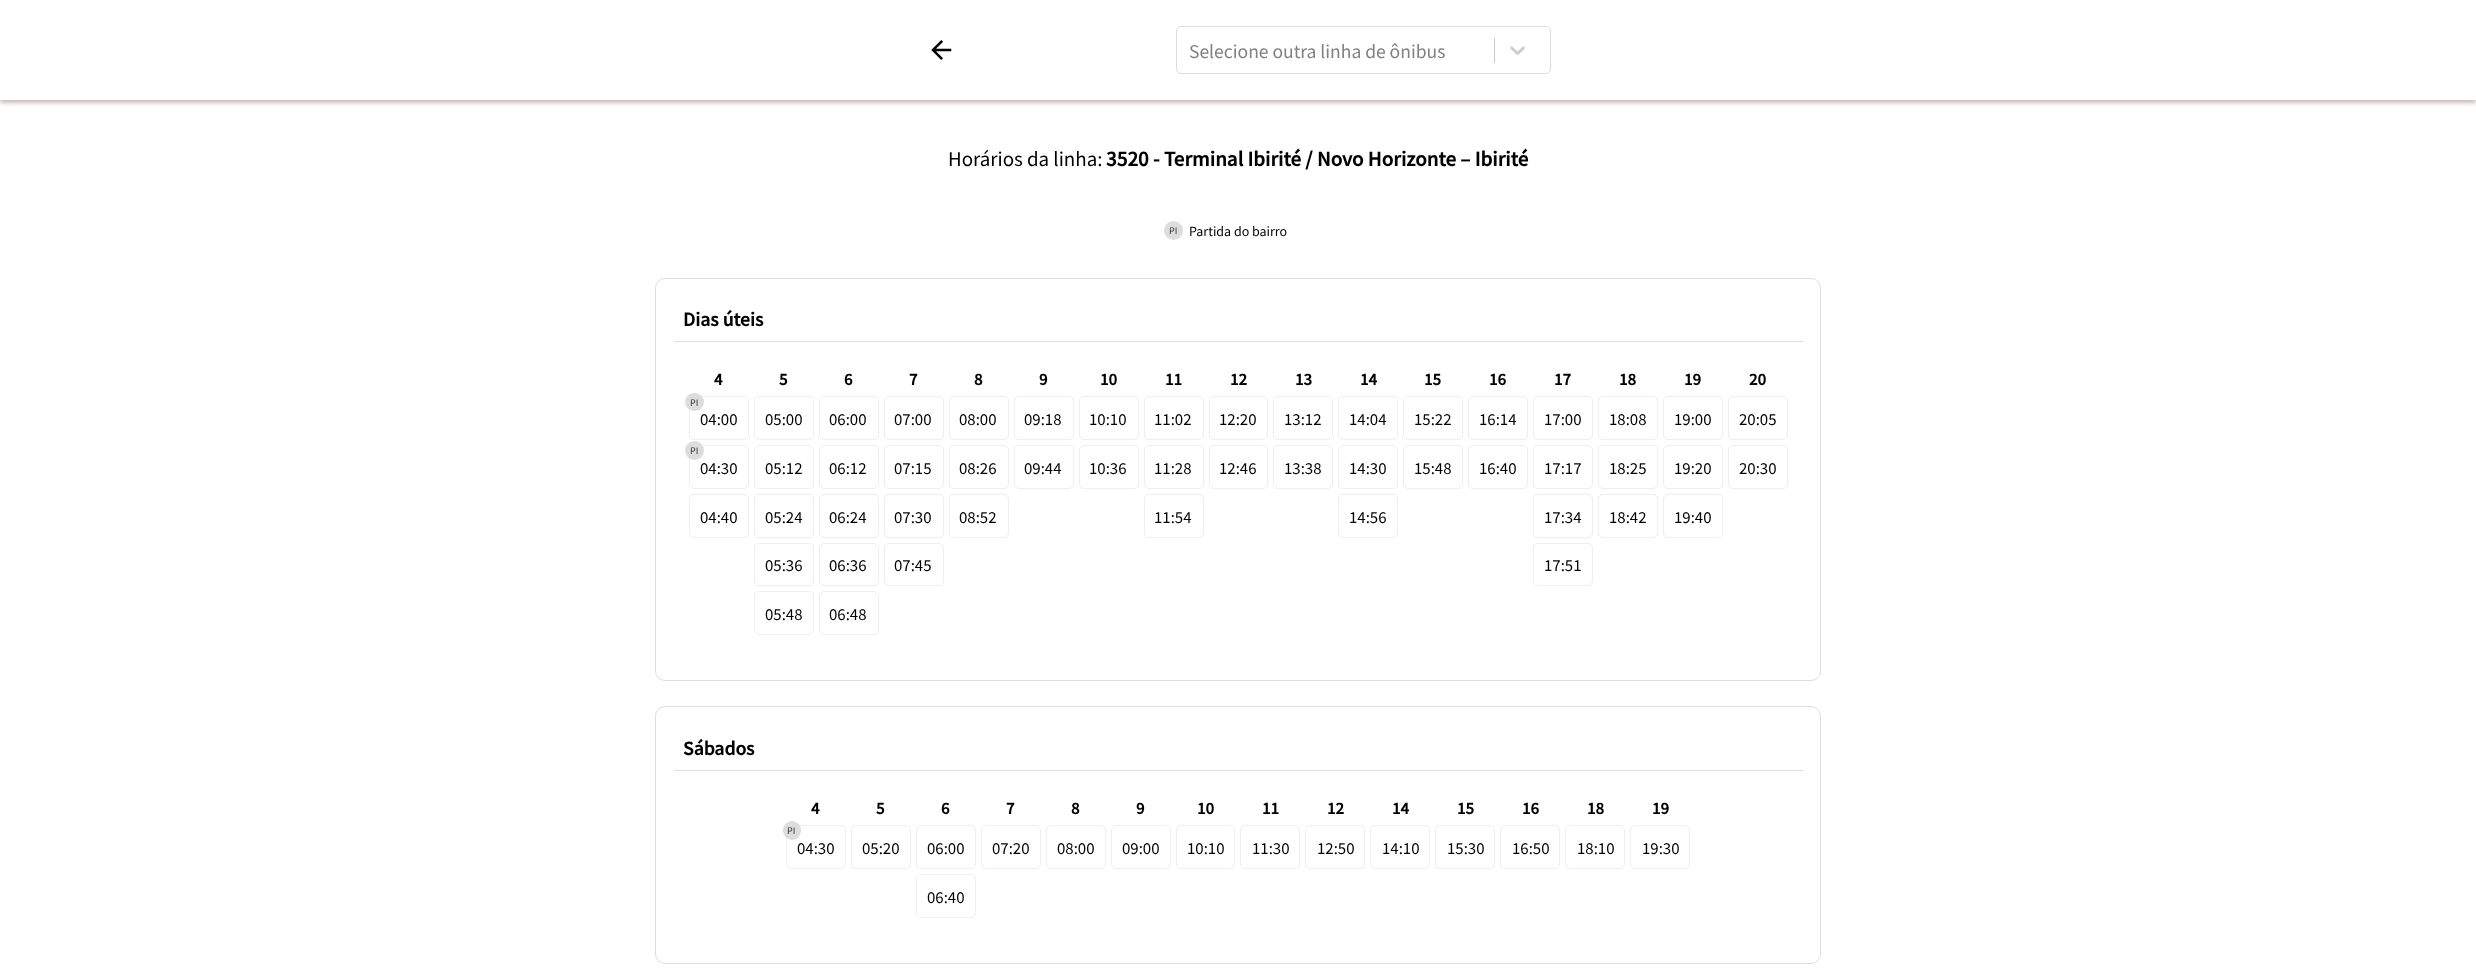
(async () => {
  const canvas = document.querySelector("canvas");
  canvas.width = 2476;
  canvas.height = 973;
  const ctx = canvas.getContext("2d");
  ctx.miterLimit = 4;
  ctx.fontKerning = "normal";
  async function loadImage(src) {
    const img = new Image();
    img.src = src;
    await img.decode();
    return img;
  }

  ctx.fillStyle = "#ffffff";
  ctx.fillRect(0, 0, 2476, 973);
  ctx.save();
  ctx.beginPath();
  ctx.rect(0, 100, 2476, 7);
  ctx.clip();
  ctx.fillStyle = "#c9bcbc";
  ctx.filter = "blur(2px)";
  ctx.beginPath();
  ctx.rect(0, 3, 2476, 100);
  ctx.fill();
  ctx.filter = "none";
  ctx.restore();
  ctx.drawImage(await loadImage("img/1.png"), 931, 40, 21, 20);
  ctx.beginPath();
  ctx.roundRect(1176.5, 26.5, 374, 47, 4.5);
  ctx.strokeStyle = "#dddddd";
  ctx.stroke();
  ctx.fillStyle = "#cccccc";
  ctx.fillRect(1494, 38, 1, 25);
  ctx.drawImage(await loadImage("img/2.png"), 1510, 46, 15, 9);
  ctx.fillStyle = "#dddddd";
  ctx.beginPath();
  ctx.arc(1173.5, 230.5, 9.5, 0, Math.PI * 2);
  ctx.fill();
  ctx.beginPath();
  ctx.roundRect(655.5, 278.5, 1165, 402, 9.5);
  ctx.stroke();
  ctx.fillRect(674, 341, 1129, 1);
  ctx.beginPath();
  ctx.roundRect(689.5, 396.5, 59, 43, 4.5);
  ctx.strokeStyle = "#eeeeee";
  ctx.stroke();
  ctx.beginPath();
  ctx.roundRect(685, 393, 19, 18, 9);
  ctx.fill();
  ctx.beginPath();
  ctx.roundRect(689.5, 445.5, 59, 43, 4.5);
  ctx.stroke();
  ctx.beginPath();
  ctx.arc(694.5, 450.5, 9.5, 0, Math.PI * 2);
  ctx.fill();
  ctx.beginPath();
  ctx.roundRect(689.5, 494.5, 59, 43, 4.5);
  ctx.stroke();
  ctx.beginPath();
  ctx.roundRect(754.5, 396.5, 59, 43, 4.5);
  ctx.stroke();
  ctx.beginPath();
  ctx.roundRect(754.5, 445.5, 59, 43, 4.5);
  ctx.stroke();
  ctx.beginPath();
  ctx.roundRect(754.5, 494.5, 59, 43, 4.5);
  ctx.stroke();
  ctx.beginPath();
  ctx.roundRect(754.5, 543.5, 59, 42, 4.5);
  ctx.stroke();
  ctx.beginPath();
  ctx.roundRect(754.5, 591.5, 59, 43, 4.5);
  ctx.stroke();
  ctx.beginPath();
  ctx.roundRect(819.5, 396.5, 59, 43, 4.5);
  ctx.stroke();
  ctx.beginPath();
  ctx.roundRect(819.5, 445.5, 59, 43, 4.5);
  ctx.stroke();
  ctx.beginPath();
  ctx.roundRect(819.5, 494.5, 59, 43, 4.5);
  ctx.stroke();
  ctx.beginPath();
  ctx.roundRect(819.5, 543.5, 59, 42, 4.5);
  ctx.stroke();
  ctx.beginPath();
  ctx.roundRect(819.5, 591.5, 59, 43, 4.5);
  ctx.stroke();
  ctx.beginPath();
  ctx.roundRect(884.5, 396.5, 59, 43, 4.5);
  ctx.stroke();
  ctx.beginPath();
  ctx.roundRect(884.5, 445.5, 59, 43, 4.5);
  ctx.stroke();
  ctx.beginPath();
  ctx.roundRect(884.5, 494.5, 59, 43, 4.5);
  ctx.stroke();
  ctx.beginPath();
  ctx.roundRect(884.5, 543.5, 59, 42, 4.5);
  ctx.stroke();
  ctx.beginPath();
  ctx.roundRect(949.5, 396.5, 59, 43, 4.5);
  ctx.stroke();
  ctx.beginPath();
  ctx.roundRect(949.5, 445.5, 59, 43, 4.5);
  ctx.stroke();
  ctx.beginPath();
  ctx.roundRect(949.5, 494.5, 59, 43, 4.5);
  ctx.stroke();
  ctx.beginPath();
  ctx.roundRect(1014.5, 396.5, 59, 43, 4.5);
  ctx.stroke();
  ctx.beginPath();
  ctx.roundRect(1014.5, 445.5, 59, 43, 4.5);
  ctx.stroke();
  ctx.beginPath();
  ctx.roundRect(1079.5, 396.5, 59, 43, 4.5);
  ctx.stroke();
  ctx.beginPath();
  ctx.roundRect(1079.5, 445.5, 59, 43, 4.5);
  ctx.stroke();
  ctx.beginPath();
  ctx.roundRect(1144.5, 396.5, 59, 43, 4.5);
  ctx.stroke();
  ctx.beginPath();
  ctx.roundRect(1144.5, 445.5, 59, 43, 4.5);
  ctx.stroke();
  ctx.beginPath();
  ctx.roundRect(1144.5, 494.5, 59, 43, 4.5);
  ctx.stroke();
  ctx.beginPath();
  ctx.roundRect(1209.5, 396.5, 58, 43, 4.5);
  ctx.stroke();
  ctx.beginPath();
  ctx.roundRect(1209.5, 445.5, 58, 43, 4.5);
  ctx.stroke();
  ctx.beginPath();
  ctx.roundRect(1273.5, 396.5, 59, 43, 4.5);
  ctx.stroke();
  ctx.beginPath();
  ctx.roundRect(1273.5, 445.5, 59, 43, 4.5);
  ctx.stroke();
  ctx.beginPath();
  ctx.roundRect(1338.5, 396.5, 59, 43, 4.5);
  ctx.stroke();
  ctx.beginPath();
  ctx.roundRect(1338.5, 445.5, 59, 43, 4.5);
  ctx.stroke();
  ctx.beginPath();
  ctx.roundRect(1338.5, 494.5, 59, 43, 4.5);
  ctx.stroke();
  ctx.beginPath();
  ctx.roundRect(1403.5, 396.5, 59, 43, 4.5);
  ctx.stroke();
  ctx.beginPath();
  ctx.roundRect(1403.5, 445.5, 59, 43, 4.5);
  ctx.stroke();
  ctx.beginPath();
  ctx.roundRect(1468.5, 396.5, 59, 43, 4.5);
  ctx.stroke();
  ctx.beginPath();
  ctx.roundRect(1468.5, 445.5, 59, 43, 4.5);
  ctx.stroke();
  ctx.beginPath();
  ctx.roundRect(1533.5, 396.5, 59, 43, 4.5);
  ctx.stroke();
  ctx.beginPath();
  ctx.roundRect(1533.5, 445.5, 59, 43, 4.5);
  ctx.stroke();
  ctx.beginPath();
  ctx.roundRect(1533.5, 494.5, 59, 43, 4.5);
  ctx.stroke();
  ctx.beginPath();
  ctx.roundRect(1533.5, 543.5, 59, 42, 4.5);
  ctx.stroke();
  ctx.beginPath();
  ctx.roundRect(1598.5, 396.5, 59, 43, 4.5);
  ctx.stroke();
  ctx.beginPath();
  ctx.roundRect(1598.5, 445.5, 59, 43, 4.5);
  ctx.stroke();
  ctx.beginPath();
  ctx.roundRect(1598.5, 494.5, 59, 43, 4.5);
  ctx.stroke();
  ctx.beginPath();
  ctx.roundRect(1663.5, 396.5, 59, 43, 4.5);
  ctx.stroke();
  ctx.beginPath();
  ctx.roundRect(1663.5, 445.5, 59, 43, 4.5);
  ctx.stroke();
  ctx.beginPath();
  ctx.roundRect(1663.5, 494.5, 59, 43, 4.5);
  ctx.stroke();
  ctx.beginPath();
  ctx.roundRect(1728.5, 396.5, 59, 43, 4.5);
  ctx.stroke();
  ctx.beginPath();
  ctx.roundRect(1728.5, 445.5, 59, 43, 4.5);
  ctx.stroke();
  ctx.beginPath();
  ctx.roundRect(655.5, 706.5, 1165, 257, 9.5);
  ctx.strokeStyle = "#dddddd";
  ctx.stroke();
  ctx.fillRect(674, 770, 1129, 1);
  ctx.beginPath();
  ctx.roundRect(786.5, 825.5, 59, 43, 4.5);
  ctx.strokeStyle = "#eeeeee";
  ctx.stroke();
  ctx.beginPath();
  ctx.roundRect(783, 821, 18, 19, 9);
  ctx.fill();
  ctx.beginPath();
  ctx.roundRect(851.5, 825.5, 59, 43, 4.5);
  ctx.stroke();
  ctx.beginPath();
  ctx.roundRect(916.5, 825.5, 59, 43, 4.5);
  ctx.stroke();
  ctx.beginPath();
  ctx.roundRect(916.5, 874.5, 59, 43, 4.5);
  ctx.stroke();
  ctx.beginPath();
  ctx.roundRect(981.5, 825.5, 59, 43, 4.5);
  ctx.stroke();
  ctx.beginPath();
  ctx.roundRect(1046.5, 825.5, 59, 43, 4.5);
  ctx.stroke();
  ctx.beginPath();
  ctx.roundRect(1111.5, 825.5, 59, 43, 4.5);
  ctx.stroke();
  ctx.beginPath();
  ctx.roundRect(1176.5, 825.5, 58, 43, 4.5);
  ctx.stroke();
  ctx.beginPath();
  ctx.roundRect(1240.5, 825.5, 59, 43, 4.5);
  ctx.stroke();
  ctx.beginPath();
  ctx.roundRect(1305.5, 825.5, 59, 43, 4.5);
  ctx.stroke();
  ctx.beginPath();
  ctx.roundRect(1370.5, 825.5, 59, 43, 4.5);
  ctx.stroke();
  ctx.beginPath();
  ctx.roundRect(1435.5, 825.5, 59, 43, 4.5);
  ctx.stroke();
  ctx.beginPath();
  ctx.roundRect(1500.5, 825.5, 59, 43, 4.5);
  ctx.stroke();
  ctx.beginPath();
  ctx.roundRect(1565.5, 825.5, 59, 43, 4.5);
  ctx.stroke();
  ctx.beginPath();
  ctx.roundRect(1630.5, 825.5, 59, 43, 4.5);
  ctx.stroke();
  ctx.font = "17.5px Noto Sans JP";
  ctx.fillStyle = "#808080";
  ctx.fillText("Selecione outra linha de ônibus", 1189, 58);
  ctx.font = "18.75px Noto Sans JP";
  ctx.fillStyle = "#000000";
  ctx.fillText("Horários da linha:", 948, 166);
  ctx.font = "bold 18.75px Noto Sans JP";
  ctx.fillText("3520 - Terminal Ibirité / Novo Horizonte – Ibirité", 1106, 166);
  ctx.font = "9px Noto Sans JP";
  ctx.fillStyle = "#333333";
  ctx.fillText("PI", 1169, 234);
  ctx.font = "12.5px Noto Sans JP";
  ctx.fillStyle = "#000000";
  ctx.fillText("Partida do bairro", 1189, 236);
  ctx.font = "bold 17.5px Noto Sans JP";
  ctx.fillText("Dias úteis", 683, 326);
  ctx.font = "bold 15px Noto Sans JP";
  ctx.fillText("4", 714, 385);
  ctx.font = "9px Noto Sans JP";
  ctx.fillStyle = "#333333";
  ctx.fillText("PI", 690, 406);
  ctx.font = "15px Noto Sans JP";
  ctx.fillStyle = "#000000";
  ctx.fillText("04:00", 700, 425);
  ctx.font = "9px Noto Sans JP";
  ctx.fillStyle = "#333333";
  ctx.fillText("PI", 690, 454);
  ctx.font = "15px Noto Sans JP";
  ctx.fillStyle = "#000000";
  ctx.fillText("04:30", 700, 474);
  ctx.fillText("04:40", 700, 523);
  ctx.font = "bold 15px Noto Sans JP";
  ctx.fillText("5", 779, 385);
  ctx.font = "15px Noto Sans JP";
  for (const [text, x, y] of [
    ["05:00", 765, 425],
    ["05:12", 765, 474],
    ["05:24", 765, 523],
    ["05:36", 765, 571],
    ["05:48", 765, 620],
  ]) {
    ctx.fillText(text, x, y);
  }
  ctx.font = "bold 15px Noto Sans JP";
  ctx.fillText("6", 844, 385);
  ctx.font = "15px Noto Sans JP";
  for (const [text, x, y] of [
    ["06:00", 829, 425],
    ["06:12", 829, 474],
    ["06:24", 829, 523],
    ["06:36", 829, 571],
    ["06:48", 829, 620],
  ]) {
    ctx.fillText(text, x, y);
  }
  ctx.font = "bold 15px Noto Sans JP";
  ctx.fillText("7", 909, 385);
  ctx.font = "15px Noto Sans JP";
  for (const [text, x, y] of [
    ["07:00", 894, 425],
    ["07:15", 894, 474],
    ["07:30", 894, 523],
    ["07:45", 894, 571],
  ]) {
    ctx.fillText(text, x, y);
  }
  ctx.font = "bold 15px Noto Sans JP";
  ctx.fillText("8", 974, 385);
  ctx.font = "15px Noto Sans JP";
  for (const [text, x, y] of [
    ["08:00", 959, 425],
    ["08:26", 959, 474],
    ["08:52", 959, 523],
  ]) {
    ctx.fillText(text, x, y);
  }
  ctx.font = "bold 15px Noto Sans JP";
  ctx.fillText("9", 1039, 385);
  ctx.font = "15px Noto Sans JP";
  ctx.fillText("09:18", 1024, 425);
  ctx.fillText("09:44", 1024, 474);
  ctx.font = "bold 15px Noto Sans JP";
  ctx.fillText("10", 1100, 385);
  ctx.font = "15px Noto Sans JP";
  ctx.fillText("10:10", 1089, 425);
  ctx.fillText("10:36", 1089, 474);
  ctx.font = "bold 15px Noto Sans JP";
  ctx.fillText("11", 1165, 385);
  ctx.font = "15px Noto Sans JP";
  for (const [text, x, y] of [
    ["11:02", 1154, 425],
    ["11:28", 1154, 474],
    ["11:54", 1154, 523],
  ]) {
    ctx.fillText(text, x, y);
  }
  ctx.font = "bold 15px Noto Sans JP";
  ctx.fillText("12", 1230, 385);
  ctx.font = "15px Noto Sans JP";
  ctx.fillText("12:20", 1219, 425);
  ctx.fillText("12:46", 1219, 474);
  ctx.font = "bold 15px Noto Sans JP";
  ctx.fillText("13", 1295, 385);
  ctx.font = "15px Noto Sans JP";
  ctx.fillText("13:12", 1284, 425);
  ctx.fillText("13:38", 1284, 474);
  ctx.font = "bold 15px Noto Sans JP";
  ctx.fillText("14", 1360, 385);
  ctx.font = "15px Noto Sans JP";
  for (const [text, x, y] of [
    ["14:04", 1349, 425],
    ["14:30", 1349, 474],
    ["14:56", 1349, 523],
  ]) {
    ctx.fillText(text, x, y);
  }
  ctx.font = "bold 15px Noto Sans JP";
  ctx.fillText("15", 1424, 385);
  ctx.font = "15px Noto Sans JP";
  ctx.fillText("15:22", 1414, 425);
  ctx.fillText("15:48", 1414, 474);
  ctx.font = "bold 15px Noto Sans JP";
  ctx.fillText("16", 1489, 385);
  ctx.font = "15px Noto Sans JP";
  ctx.fillText("16:14", 1479, 425);
  ctx.fillText("16:40", 1479, 474);
  ctx.font = "bold 15px Noto Sans JP";
  ctx.fillText("17", 1554, 385);
  ctx.font = "15px Noto Sans JP";
  for (const [text, x, y] of [
    ["17:00", 1544, 425],
    ["17:17", 1544, 474],
    ["17:34", 1544, 523],
    ["17:51", 1544, 571],
  ]) {
    ctx.fillText(text, x, y);
  }
  ctx.font = "bold 15px Noto Sans JP";
  ctx.fillText("18", 1619, 385);
  ctx.font = "15px Noto Sans JP";
  for (const [text, x, y] of [
    ["18:08", 1609, 425],
    ["18:25", 1609, 474],
    ["18:42", 1609, 523],
  ]) {
    ctx.fillText(text, x, y);
  }
  ctx.font = "bold 15px Noto Sans JP";
  ctx.fillText("19", 1684, 385);
  ctx.font = "15px Noto Sans JP";
  for (const [text, x, y] of [
    ["19:00", 1674, 425],
    ["19:20", 1674, 474],
    ["19:40", 1674, 523],
  ]) {
    ctx.fillText(text, x, y);
  }
  ctx.font = "bold 15px Noto Sans JP";
  ctx.fillText("20", 1749, 385);
  ctx.font = "15px Noto Sans JP";
  ctx.fillText("20:05", 1739, 425);
  ctx.fillText("20:30", 1739, 474);
  ctx.font = "bold 17.5px Noto Sans JP";
  ctx.fillText("Sábados", 683, 755);
  ctx.font = "bold 15px Noto Sans JP";
  ctx.fillText("4", 811, 814);
  ctx.font = "9px Noto Sans JP";
  ctx.fillStyle = "#333333";
  ctx.fillText("PI", 787, 834);
  ctx.font = "15px Noto Sans JP";
  ctx.fillStyle = "#000000";
  ctx.fillText("04:30", 797, 854);
  ctx.font = "bold 15px Noto Sans JP";
  ctx.fillText("5", 876, 814);
  ctx.font = "15px Noto Sans JP";
  ctx.fillText("05:20", 862, 854);
  ctx.font = "bold 15px Noto Sans JP";
  ctx.fillText("6", 941, 814);
  ctx.font = "15px Noto Sans JP";
  ctx.fillText("06:00", 927, 854);
  ctx.fillText("06:40", 927, 903);
  ctx.font = "bold 15px Noto Sans JP";
  ctx.fillText("7", 1006, 814);
  ctx.font = "15px Noto Sans JP";
  ctx.fillText("07:20", 992, 854);
  ctx.font = "bold 15px Noto Sans JP";
  ctx.fillText("8", 1071, 814);
  ctx.font = "15px Noto Sans JP";
  ctx.fillText("08:00", 1057, 854);
  ctx.font = "bold 15px Noto Sans JP";
  ctx.fillText("9", 1136, 814);
  ctx.font = "15px Noto Sans JP";
  ctx.fillText("09:00", 1122, 854);
  ctx.font = "bold 15px Noto Sans JP";
  ctx.fillText("10", 1197, 814);
  ctx.font = "15px Noto Sans JP";
  ctx.fillText("10:10", 1187, 854);
  ctx.font = "bold 15px Noto Sans JP";
  ctx.fillText("11", 1262, 814);
  ctx.font = "15px Noto Sans JP";
  ctx.fillText("11:30", 1252, 854);
  ctx.font = "bold 15px Noto Sans JP";
  ctx.fillText("12", 1327, 814);
  ctx.font = "15px Noto Sans JP";
  ctx.fillText("12:50", 1317, 854);
  ctx.font = "bold 15px Noto Sans JP";
  ctx.fillText("14", 1392, 814);
  ctx.font = "15px Noto Sans JP";
  ctx.fillText("14:10", 1382, 854);
  ctx.font = "bold 15px Noto Sans JP";
  ctx.fillText("15", 1457, 814);
  ctx.font = "15px Noto Sans JP";
  ctx.fillText("15:30", 1447, 854);
  ctx.font = "bold 15px Noto Sans JP";
  ctx.fillText("16", 1522, 814);
  ctx.font = "15px Noto Sans JP";
  ctx.fillText("16:50", 1512, 854);
  ctx.font = "bold 15px Noto Sans JP";
  ctx.fillText("18", 1587, 814);
  ctx.font = "15px Noto Sans JP";
  ctx.fillText("18:10", 1577, 854);
  ctx.font = "bold 15px Noto Sans JP";
  ctx.fillText("19", 1652, 814);
  ctx.font = "15px Noto Sans JP";
  ctx.fillText("19:30", 1642, 854);
})();
